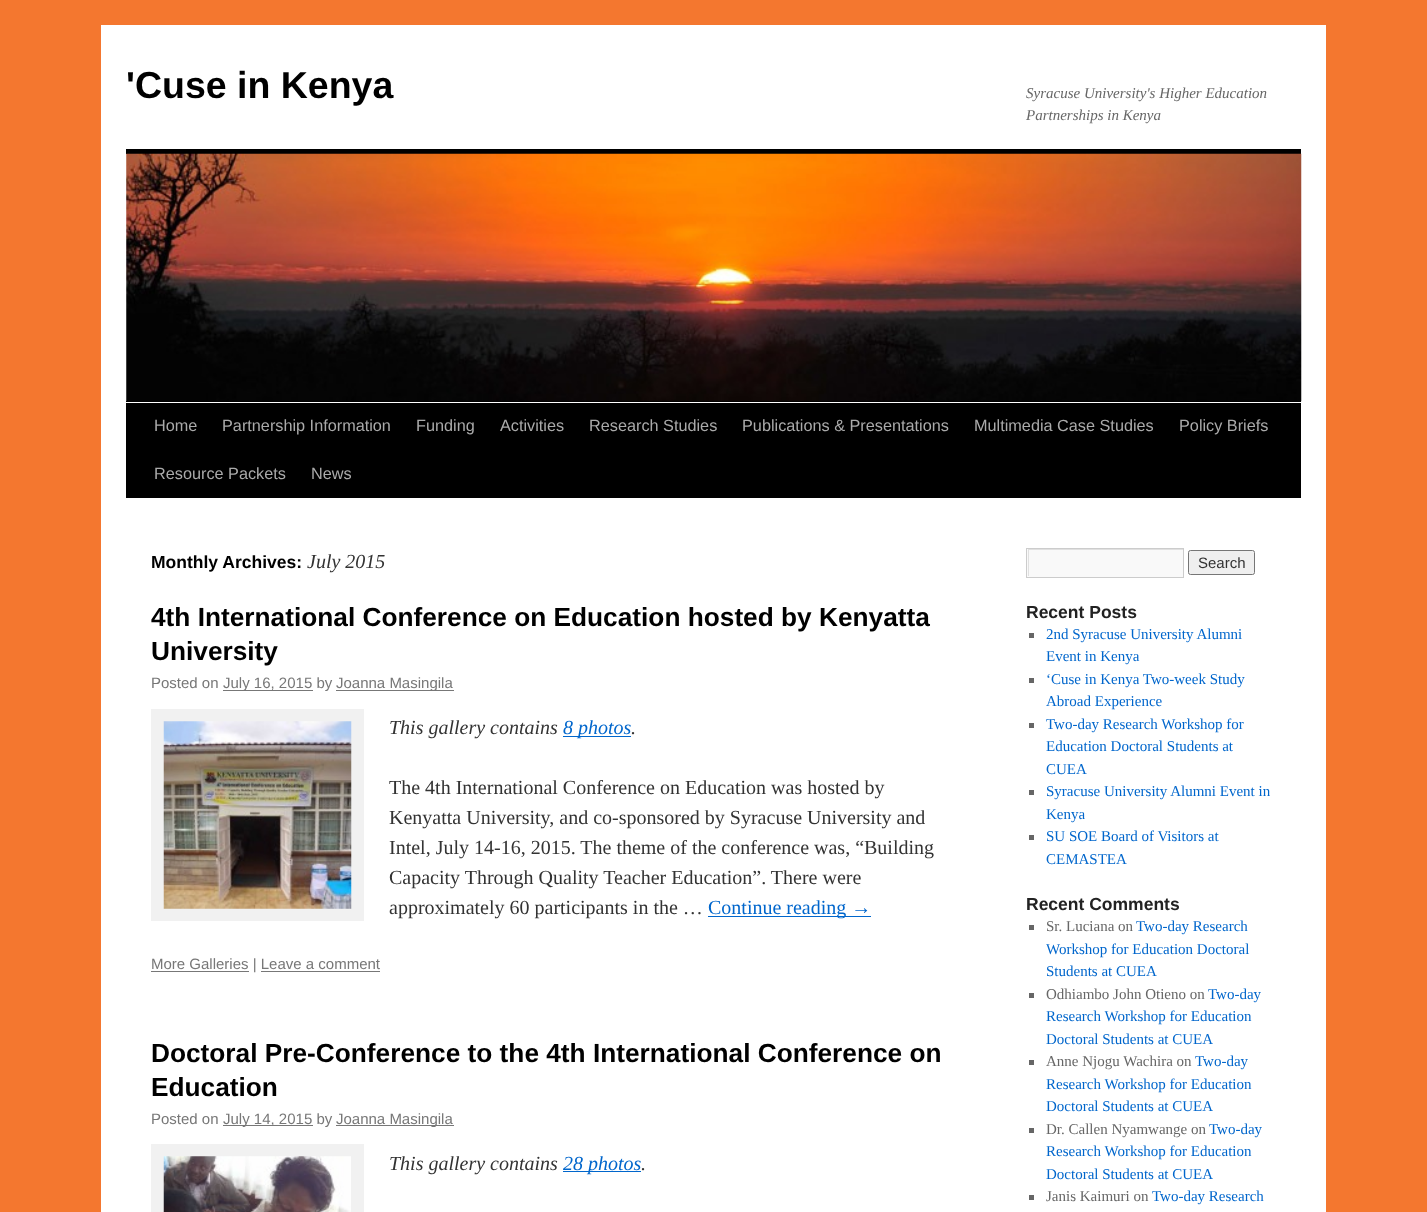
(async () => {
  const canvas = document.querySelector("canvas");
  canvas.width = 1427;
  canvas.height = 1212;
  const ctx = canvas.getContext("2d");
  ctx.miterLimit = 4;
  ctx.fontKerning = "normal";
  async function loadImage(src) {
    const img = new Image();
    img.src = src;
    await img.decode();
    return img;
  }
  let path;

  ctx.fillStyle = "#f4772f";
  ctx.fillRect(0, 0, 1427, 1212);
  for (const [x, y, w, h, color] of [
    [101, 25, 1225, 1187, "#ffffff"],
    [126, 149, 1175, 5, "#000000"],
    [126, 401, 1175, 1, "#000000"],
  ]) {
    ctx.fillStyle = color;
    ctx.fillRect(x, y, w, h);
  }
  ctx.drawImage(await loadImage("img/1.png"), 126, 153, 1176, 249);
  for (const [x, y, w, h, color] of [
    [126, 403, 1175, 95, "#000000"],
    [223, 690, 90, 1, "#777777"],
    [336, 690, 118, 1, "#777777"],
  ]) {
    ctx.fillStyle = color;
    ctx.fillRect(x, y, w, h);
  }
  ctx.strokeStyle = "#f1f1f1";
  ctx.lineWidth = 13;
  ctx.strokeRect(157.5, 715.5, 200, 199);
  ctx.drawImage(await loadImage("img/2.png"), 163, 721, 189, 188);
  for (const [x, y, w, h, color] of [
    [563, 736, 68, 1, "#0066cc"],
    [708, 916, 163, 1, "#0066cc"],
    [151, 971, 98, 1, "#777777"],
    [261, 971, 119, 1, "#777777"],
    [223, 1125, 90, 1, "#777777"],
    [336, 1125, 118, 1, "#777777"],
  ]) {
    ctx.fillStyle = color;
    ctx.fillRect(x, y, w, h);
  }
  ctx.strokeRect(157.5, 1150.5, 200, 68);
  ctx.drawImage(await loadImage("img/3.png"), 163, 1156, 188, 56);
  ctx.fillStyle = "#0066cc";
  ctx.fillRect(563, 1171, 78, 1);
  ctx.fillStyle = "#f9f9f9";
  ctx.fillRect(1027, 549, 156, 28);
  ctx.save();
  ctx.beginPath();
  ctx.rect(1028, 549, 155, 27);
  ctx.clip();
  ctx.fillStyle = "#e0e0e0";
  path = new Path2D("M904 425H1306V700H904ZM1029 550H1184V578H1029Z");
  ctx.fill(path, "evenodd");
  ctx.restore();
  ctx.strokeStyle = "#cccccc";
  ctx.lineWidth = 1;
  ctx.strokeRect(1026.5, 548.5, 157, 29);
  ctx.fillStyle = "#efefef";
  ctx.beginPath();
  ctx.roundRect(1188.5, 550.5, 66, 24, 2);
  ctx.fill();
  ctx.strokeStyle = "#767676";
  ctx.stroke();
  for (const [x, y, w, h, color] of [
    [1029, 633, 5, 5, "#666666"],
    [1029, 678, 5, 5, "#666666"],
    [1029, 723, 5, 5, "#666666"],
    [1029, 790, 5, 5, "#666666"],
    [1029, 835, 5, 5, "#666666"],
    [1029, 925, 5, 5, "#666666"],
    [1029, 993, 5, 5, "#666666"],
    [1029, 1060, 5, 5, "#666666"],
    [1029, 1128, 5, 5, "#666666"],
    [1029, 1195, 5, 5, "#666666"],
  ]) {
    ctx.fillStyle = color;
    ctx.fillRect(x, y, w, h);
  }
  ctx.font = "bold 37.5px Liberation Sans";
  ctx.fillStyle = "#000000";
  ctx.fillText("'Cuse in Kenya", 126, 98);
  ctx.font = "italic 15px Liberation Serif";
  ctx.fillStyle = "#666666";
  ctx.fillText("Syracuse University's Higher Education", 1026, 98);
  ctx.fillText("Partnerships in Kenya", 1026, 120);
  ctx.font = "16.25px Liberation Sans";
  ctx.fillStyle = "#aaaaaa";
  for (const [text, x, y] of [
    ["Home", 154, 431],
    ["Partnership Information", 222, 431],
    ["Funding", 416, 431],
    ["Activities", 500, 431],
    ["Research Studies", 589, 431],
    ["Publications & Presentations", 742, 431],
    ["Multimedia Case Studies", 974, 431],
    ["Policy Briefs", 1179, 431],
    ["Resource Packets", 154, 479],
    ["News", 311, 479],
  ]) {
    ctx.fillText(text, x, y);
  }
  ctx.font = "bold 17.5px Liberation Sans";
  ctx.fillStyle = "#000000";
  ctx.fillText("Monthly Archives:", 151, 568);
  ctx.font = "italic 20px Liberation Serif";
  ctx.fillStyle = "#333333";
  ctx.fillText("July 2015", 307, 568);
  ctx.font = "bold 26.25px Liberation Sans";
  ctx.fillStyle = "#000000";
  ctx.fillText("4th International Conference on Education hosted by Kenyatta", 151, 626);
  ctx.fillText("University", 151, 660);
  ctx.font = "15px Liberation Sans";
  ctx.fillStyle = "#777777";
  for (const [text, x, y] of [
    ["Posted on", 151, 688],
    ["July 16, 2015 by", 223, 688],
    ["Joanna Masingila", 336, 688],
  ]) {
    ctx.fillText(text, x, y);
  }
  ctx.font = "italic 20px Liberation Serif";
  ctx.fillStyle = "#333333";
  ctx.fillText("This gallery contains", 389, 734);
  ctx.fillStyle = "#0066cc";
  ctx.fillText("8 photos", 563, 734);
  ctx.fillStyle = "#333333";
  ctx.fillText(".", 631, 734);
  ctx.font = "20px Liberation Serif";
  for (const [text, x, y] of [
    ["The 4th International Conference on Education was hosted by", 389, 794],
    ["Kenyatta University, and co-sponsored by Syracuse University and", 389, 824],
    ["Intel, July 14-16, 2015. The theme of the conference was, “Building", 389, 854],
    ["Capacity Through Quality Teacher Education”. There were", 389, 884],
    ["approximately 60 participants in the …", 389, 914],
  ]) {
    ctx.fillText(text, x, y);
  }
  ctx.fillStyle = "#0066cc";
  ctx.fillText("Continue reading →", 708, 914);
  ctx.font = "15px Liberation Sans";
  ctx.fillStyle = "#777777";
  ctx.fillText("More Galleries | Leave a comment", 151, 969);
  ctx.font = "bold 26.25px Liberation Sans";
  ctx.fillStyle = "#000000";
  ctx.fillText("Doctoral Pre-Conference to the 4th International Conference on", 151, 1062);
  ctx.fillText("Education", 151, 1096);
  ctx.font = "15px Liberation Sans";
  ctx.fillStyle = "#777777";
  for (const [text, x, y] of [
    ["Posted on", 151, 1124],
    ["July 14, 2015 by", 223, 1124],
    ["Joanna Masingila", 336, 1124],
  ]) {
    ctx.fillText(text, x, y);
  }
  ctx.font = "italic 20px Liberation Serif";
  ctx.fillStyle = "#333333";
  ctx.fillText("This gallery contains", 389, 1170);
  ctx.fillStyle = "#0066cc";
  ctx.fillText("28 photos", 563, 1170);
  ctx.fillStyle = "#333333";
  ctx.fillText(".", 641, 1170);
  ctx.font = "15px Liberation Sans";
  ctx.fillText("Search", 1198, 568);
  ctx.font = "bold 17.5px Liberation Sans";
  ctx.fillStyle = "#222222";
  ctx.fillText("Recent Posts", 1026, 618);
  ctx.font = "15px Liberation Serif";
  ctx.fillStyle = "#0066cc";
  for (const [text, x, y] of [
    ["2nd Syracuse University Alumni", 1046, 639],
    ["Event in Kenya", 1046, 661],
    ["‘Cuse in Kenya Two-week Study", 1046, 684],
    ["Abroad Experience", 1046, 706],
    ["Two-day Research Workshop for", 1046, 729],
    ["Education Doctoral Students at", 1046, 751],
    ["CUEA", 1046, 774],
    ["Syracuse University Alumni Event in", 1046, 796],
    ["Kenya", 1046, 819],
    ["SU SOE Board of Visitors at", 1046, 841],
    ["CEMASTEA", 1046, 864],
  ]) {
    ctx.fillText(text, x, y);
  }
  ctx.font = "bold 17.5px Liberation Sans";
  ctx.fillStyle = "#222222";
  ctx.fillText("Recent Comments", 1026, 910);
  ctx.font = "15px Liberation Serif";
  ctx.fillStyle = "#666666";
  ctx.fillText("Sr. Luciana on", 1046, 931);
  ctx.fillStyle = "#0066cc";
  for (const [text, x, y] of [
    ["Two-day Research", 1136, 931],
    ["Workshop for Education Doctoral", 1046, 954],
    ["Students at CUEA", 1046, 976],
  ]) {
    ctx.fillText(text, x, y);
  }
  ctx.fillStyle = "#666666";
  ctx.fillText("Odhiambo John Otieno on", 1046, 999);
  ctx.fillStyle = "#0066cc";
  for (const [text, x, y] of [
    ["Two-day", 1208, 999],
    ["Research Workshop for Education", 1046, 1021],
    ["Doctoral Students at CUEA", 1046, 1044],
  ]) {
    ctx.fillText(text, x, y);
  }
  ctx.fillStyle = "#666666";
  ctx.fillText("Anne Njogu Wachira on", 1046, 1066);
  ctx.fillStyle = "#0066cc";
  for (const [text, x, y] of [
    ["Two-day", 1195, 1066],
    ["Research Workshop for Education", 1046, 1089],
    ["Doctoral Students at CUEA", 1046, 1111],
  ]) {
    ctx.fillText(text, x, y);
  }
  ctx.fillStyle = "#666666";
  ctx.fillText("Dr. Callen Nyamwange on", 1046, 1134);
  ctx.fillStyle = "#0066cc";
  for (const [text, x, y] of [
    ["Two-day", 1209, 1134],
    ["Research Workshop for Education", 1046, 1156],
    ["Doctoral Students at CUEA", 1046, 1179],
  ]) {
    ctx.fillText(text, x, y);
  }
  ctx.fillStyle = "#666666";
  ctx.fillText("Janis Kaimuri on", 1046, 1201);
  ctx.fillStyle = "#0066cc";
  ctx.fillText("Two-day Research", 1152, 1201);
})();
